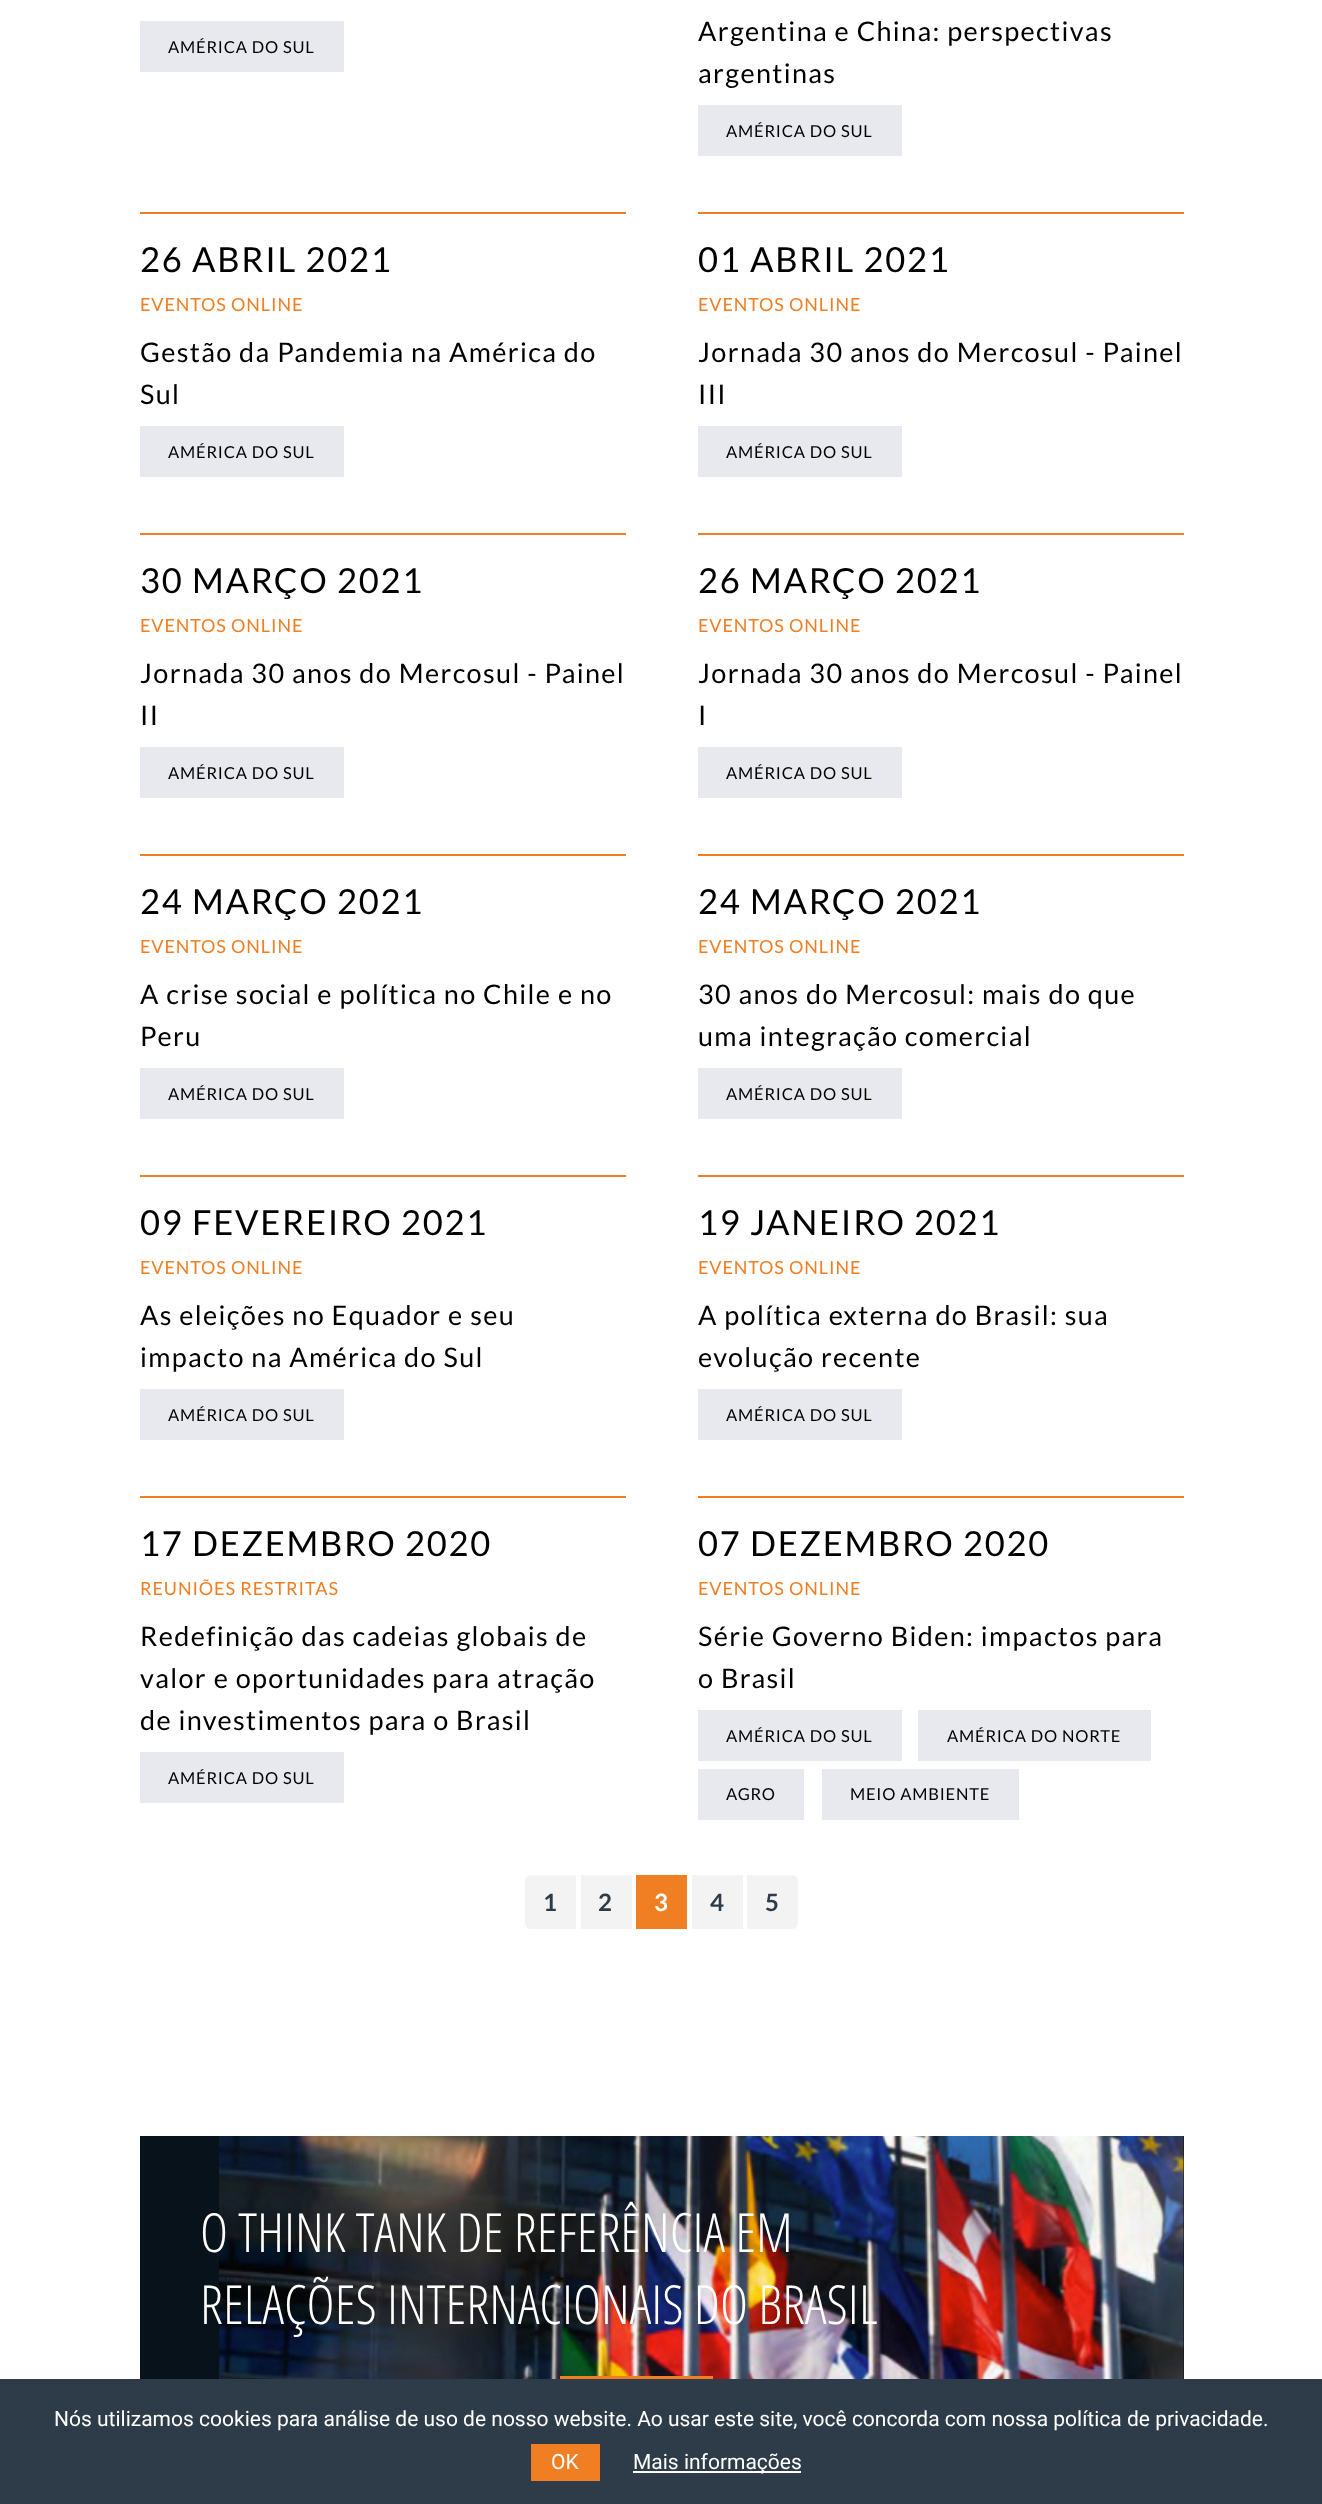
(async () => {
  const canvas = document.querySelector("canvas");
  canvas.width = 1322;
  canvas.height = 2504;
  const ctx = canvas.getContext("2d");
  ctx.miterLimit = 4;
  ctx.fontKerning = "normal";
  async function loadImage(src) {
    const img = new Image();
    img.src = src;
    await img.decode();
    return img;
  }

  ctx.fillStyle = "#ffffff";
  ctx.fillRect(0, 0, 1322, 2504);
  for (const [x, y, w, h, color] of [
    [140, 21, 204, 51, "#e8e9ef"],
    [698, 105, 204, 51, "#e8e9ef"],
    [140, 212, 486, 2, "#f07e23"],
    [140, 426, 204, 51, "#e8e9ef"],
    [698, 212, 486, 2, "#f07e23"],
    [698, 426, 204, 51, "#e8e9ef"],
    [140, 533, 486, 2, "#f07e23"],
    [140, 747, 204, 51, "#e8e9ef"],
    [698, 533, 486, 2, "#f07e23"],
    [698, 747, 204, 51, "#e8e9ef"],
    [140, 854, 486, 2, "#f07e23"],
    [140, 1068, 204, 51, "#e8e9ef"],
    [698, 854, 486, 2, "#f07e23"],
    [698, 1068, 204, 51, "#e8e9ef"],
    [140, 1175, 486, 2, "#f07e23"],
    [140, 1389, 204, 51, "#e8e9ef"],
    [698, 1175, 486, 2, "#f07e23"],
    [698, 1389, 204, 51, "#e8e9ef"],
    [140, 1496, 486, 2, "#f07e23"],
    [140, 1752, 204, 51, "#e8e9ef"],
    [698, 1496, 486, 2, "#f07e23"],
    [698, 1710, 204, 51, "#e8e9ef"],
    [918, 1710, 233, 51, "#e8e9ef"],
    [698, 1769, 106, 51, "#e8e9ef"],
    [822, 1769, 197, 51, "#e8e9ef"],
  ]) {
    ctx.fillStyle = color;
    ctx.fillRect(x, y, w, h);
  }
  ctx.fillStyle = "#f3f3f3";
  ctx.beginPath();
  ctx.roundRect(525, 1875, 51, 54, [6, 0, 0, 6]);
  ctx.fill();
  for (const [x, y, w, h, color] of [
    [581, 1875, 51, 54, "#f3f3f3"],
    [636, 1875, 51, 54, "#f07e23"],
    [692, 1875, 51, 54, "#f3f3f3"],
  ]) {
    ctx.fillStyle = color;
    ctx.fillRect(x, y, w, h);
  }
  ctx.beginPath();
  ctx.roundRect(747, 1875, 51, 54, [0, 6, 6, 0]);
  ctx.fill();
  ctx.fillStyle = "#08121a";
  ctx.fillRect(140, 2136, 1044, 243);
  ctx.drawImage(await loadImage("img/1.png"), 219, 2136, 965, 243);
  for (const [x, y, w, h, color] of [
    [560, 2376, 153, 3, "#f07e23"],
    [0, 2379, 1322, 125, "#2d3c48"],
    [531, 2444, 69, 37, "#f07e23"],
    [633, 2471, 168, 2, "#ffffff"],
  ]) {
    ctx.fillStyle = color;
    ctx.fillRect(x, y, w, h);
  }
  ctx.letterSpacing = "0.8px";
  ctx.font = "16.5px Lato";
  ctx.fillStyle = "#000000";
  ctx.fillText("AMÉRICA DO SUL", 168, 53);
  ctx.letterSpacing = "1.35px";
  ctx.font = "27px Lato";
  ctx.fillText("Argentina e China: perspectivas", 698, 41);
  ctx.fillText("argentinas", 698, 83);
  ctx.letterSpacing = "0.8px";
  ctx.font = "16.5px Lato";
  ctx.fillText("AMÉRICA DO SUL", 726, 137);
  ctx.letterSpacing = "1.75px";
  ctx.font = "34.5px Lato";
  ctx.fillText("26 ABRIL 2021", 140, 272);
  ctx.letterSpacing = "0.9px";
  ctx.font = "18px Lato";
  ctx.fillStyle = "#f07e23";
  ctx.fillText("EVENTOS ONLINE", 140, 311);
  ctx.letterSpacing = "1.35px";
  ctx.font = "27px Lato";
  ctx.fillStyle = "#000000";
  ctx.fillText("Gestão da Pandemia na América do", 140, 362);
  ctx.fillText("Sul", 140, 404);
  ctx.letterSpacing = "0.8px";
  ctx.font = "16.5px Lato";
  ctx.fillText("AMÉRICA DO SUL", 168, 458);
  ctx.letterSpacing = "1.75px";
  ctx.font = "34.5px Lato";
  ctx.fillText("01 ABRIL 2021", 698, 272);
  ctx.letterSpacing = "0.9px";
  ctx.font = "18px Lato";
  ctx.fillStyle = "#f07e23";
  ctx.fillText("EVENTOS ONLINE", 698, 311);
  ctx.letterSpacing = "1.35px";
  ctx.font = "27px Lato";
  ctx.fillStyle = "#000000";
  ctx.fillText("Jornada 30 anos do Mercosul - Painel", 698, 362);
  ctx.fillText("III", 698, 404);
  ctx.letterSpacing = "0.8px";
  ctx.font = "16.5px Lato";
  ctx.fillText("AMÉRICA DO SUL", 726, 458);
  ctx.letterSpacing = "1.75px";
  ctx.font = "34.5px Lato";
  ctx.fillText("30 MARÇO 2021", 140, 593);
  ctx.letterSpacing = "0.9px";
  ctx.font = "18px Lato";
  ctx.fillStyle = "#f07e23";
  ctx.fillText("EVENTOS ONLINE", 140, 632);
  ctx.letterSpacing = "1.35px";
  ctx.font = "27px Lato";
  ctx.fillStyle = "#000000";
  ctx.fillText("Jornada 30 anos do Mercosul - Painel", 140, 683);
  ctx.fillText("II", 140, 725);
  ctx.letterSpacing = "0.8px";
  ctx.font = "16.5px Lato";
  ctx.fillText("AMÉRICA DO SUL", 168, 779);
  ctx.letterSpacing = "1.75px";
  ctx.font = "34.5px Lato";
  ctx.fillText("26 MARÇO 2021", 698, 593);
  ctx.letterSpacing = "0.9px";
  ctx.font = "18px Lato";
  ctx.fillStyle = "#f07e23";
  ctx.fillText("EVENTOS ONLINE", 698, 632);
  ctx.letterSpacing = "1.35px";
  ctx.font = "27px Lato";
  ctx.fillStyle = "#000000";
  ctx.fillText("Jornada 30 anos do Mercosul - Painel", 698, 683);
  ctx.fillText("I", 698, 725);
  ctx.letterSpacing = "0.8px";
  ctx.font = "16.5px Lato";
  ctx.fillText("AMÉRICA DO SUL", 726, 779);
  ctx.letterSpacing = "1.75px";
  ctx.font = "34.5px Lato";
  ctx.fillText("24 MARÇO 2021", 140, 914);
  ctx.letterSpacing = "0.9px";
  ctx.font = "18px Lato";
  ctx.fillStyle = "#f07e23";
  ctx.fillText("EVENTOS ONLINE", 140, 953);
  ctx.letterSpacing = "1.35px";
  ctx.font = "27px Lato";
  ctx.fillStyle = "#000000";
  ctx.fillText("A crise social e política no Chile e no", 140, 1004);
  ctx.fillText("Peru", 140, 1046);
  ctx.letterSpacing = "0.8px";
  ctx.font = "16.5px Lato";
  ctx.fillText("AMÉRICA DO SUL", 168, 1100);
  ctx.letterSpacing = "1.75px";
  ctx.font = "34.5px Lato";
  ctx.fillText("24 MARÇO 2021", 698, 914);
  ctx.letterSpacing = "0.9px";
  ctx.font = "18px Lato";
  ctx.fillStyle = "#f07e23";
  ctx.fillText("EVENTOS ONLINE", 698, 953);
  ctx.letterSpacing = "1.35px";
  ctx.font = "27px Lato";
  ctx.fillStyle = "#000000";
  ctx.fillText("30 anos do Mercosul: mais do que", 698, 1004);
  ctx.fillText("uma integração comercial", 698, 1046);
  ctx.letterSpacing = "0.8px";
  ctx.font = "16.5px Lato";
  ctx.fillText("AMÉRICA DO SUL", 726, 1100);
  ctx.letterSpacing = "1.75px";
  ctx.font = "34.5px Lato";
  ctx.fillText("09 FEVEREIRO 2021", 140, 1235);
  ctx.letterSpacing = "0.9px";
  ctx.font = "18px Lato";
  ctx.fillStyle = "#f07e23";
  ctx.fillText("EVENTOS ONLINE", 140, 1274);
  ctx.letterSpacing = "1.35px";
  ctx.font = "27px Lato";
  ctx.fillStyle = "#000000";
  ctx.fillText("As eleições no Equador e seu", 140, 1325);
  ctx.fillText("impacto na América do Sul", 140, 1367);
  ctx.letterSpacing = "0.8px";
  ctx.font = "16.5px Lato";
  ctx.fillText("AMÉRICA DO SUL", 168, 1421);
  ctx.letterSpacing = "1.75px";
  ctx.font = "34.5px Lato";
  ctx.fillText("19 JANEIRO 2021", 698, 1235);
  ctx.letterSpacing = "0.9px";
  ctx.font = "18px Lato";
  ctx.fillStyle = "#f07e23";
  ctx.fillText("EVENTOS ONLINE", 698, 1274);
  ctx.letterSpacing = "1.35px";
  ctx.font = "27px Lato";
  ctx.fillStyle = "#000000";
  ctx.fillText("A política externa do Brasil: sua", 698, 1325);
  ctx.fillText("evolução recente", 698, 1367);
  ctx.letterSpacing = "0.8px";
  ctx.font = "16.5px Lato";
  ctx.fillText("AMÉRICA DO SUL", 726, 1421);
  ctx.letterSpacing = "1.75px";
  ctx.font = "34.5px Lato";
  ctx.fillText("17 DEZEMBRO 2020", 140, 1556);
  ctx.letterSpacing = "0.9px";
  ctx.font = "18px Lato";
  ctx.fillStyle = "#f07e23";
  ctx.fillText("REUNIÕES RESTRITAS", 140, 1595);
  ctx.letterSpacing = "1.35px";
  ctx.font = "27px Lato";
  ctx.fillStyle = "#000000";
  for (const [text, x, y] of [
    ["Redefinição das cadeias globais de", 140, 1646],
    ["valor e oportunidades para atração", 140, 1688],
    ["de investimentos para o Brasil", 140, 1730],
  ]) {
    ctx.fillText(text, x, y);
  }
  ctx.letterSpacing = "0.8px";
  ctx.font = "16.5px Lato";
  ctx.fillText("AMÉRICA DO SUL", 168, 1784);
  ctx.letterSpacing = "1.75px";
  ctx.font = "34.5px Lato";
  ctx.fillText("07 DEZEMBRO 2020", 698, 1556);
  ctx.letterSpacing = "0.9px";
  ctx.font = "18px Lato";
  ctx.fillStyle = "#f07e23";
  ctx.fillText("EVENTOS ONLINE", 698, 1595);
  ctx.letterSpacing = "1.35px";
  ctx.font = "27px Lato";
  ctx.fillStyle = "#000000";
  ctx.fillText("Série Governo Biden: impactos para", 698, 1646);
  ctx.fillText("o Brasil", 698, 1688);
  ctx.letterSpacing = "0.8px";
  ctx.font = "16.5px Lato";
  for (const [text, x, y] of [
    ["AMÉRICA DO SUL", 726, 1742],
    ["AMÉRICA DO NORTE", 947, 1742],
    ["AGRO", 726, 1800],
    ["MEIO AMBIENTE", 850, 1800],
  ]) {
    ctx.fillText(text, x, y);
  }
  ctx.letterSpacing = "1px";
  ctx.font = "bold 24px Lato";
  ctx.fillStyle = "#2d3c48";
  ctx.fillText("1", 543, 1911);
  ctx.fillText("2", 598, 1911);
  ctx.fillStyle = "#ffffff";
  ctx.fillText("3", 654, 1911);
  ctx.fillStyle = "#2d3c48";
  ctx.fillText("4", 710, 1911);
  ctx.fillText("5", 765, 1911);
  ctx.letterSpacing = "0px";
  ctx.font = "300 54px Open Sans Condensed";
  ctx.fillStyle = "#ffffff";
  ctx.fillText("O THINK TANK DE REFERÊNCIA EM", 200, 2252);
  ctx.fillText("RELAÇÕES INTERNACIONAIS DO BRASIL", 200, 2324);
  ctx.font = "21px Roboto";
  for (const [text, x, y] of [
    ["Nós utilizamos cookies para análise de uso de nosso website. Ao usar este site, você concorda com nossa política de privacidade.", 54, 2426],
    ["OK", 551, 2469],
    ["Mais informações", 633, 2469],
  ]) {
    ctx.fillText(text, x, y);
  }
})();
